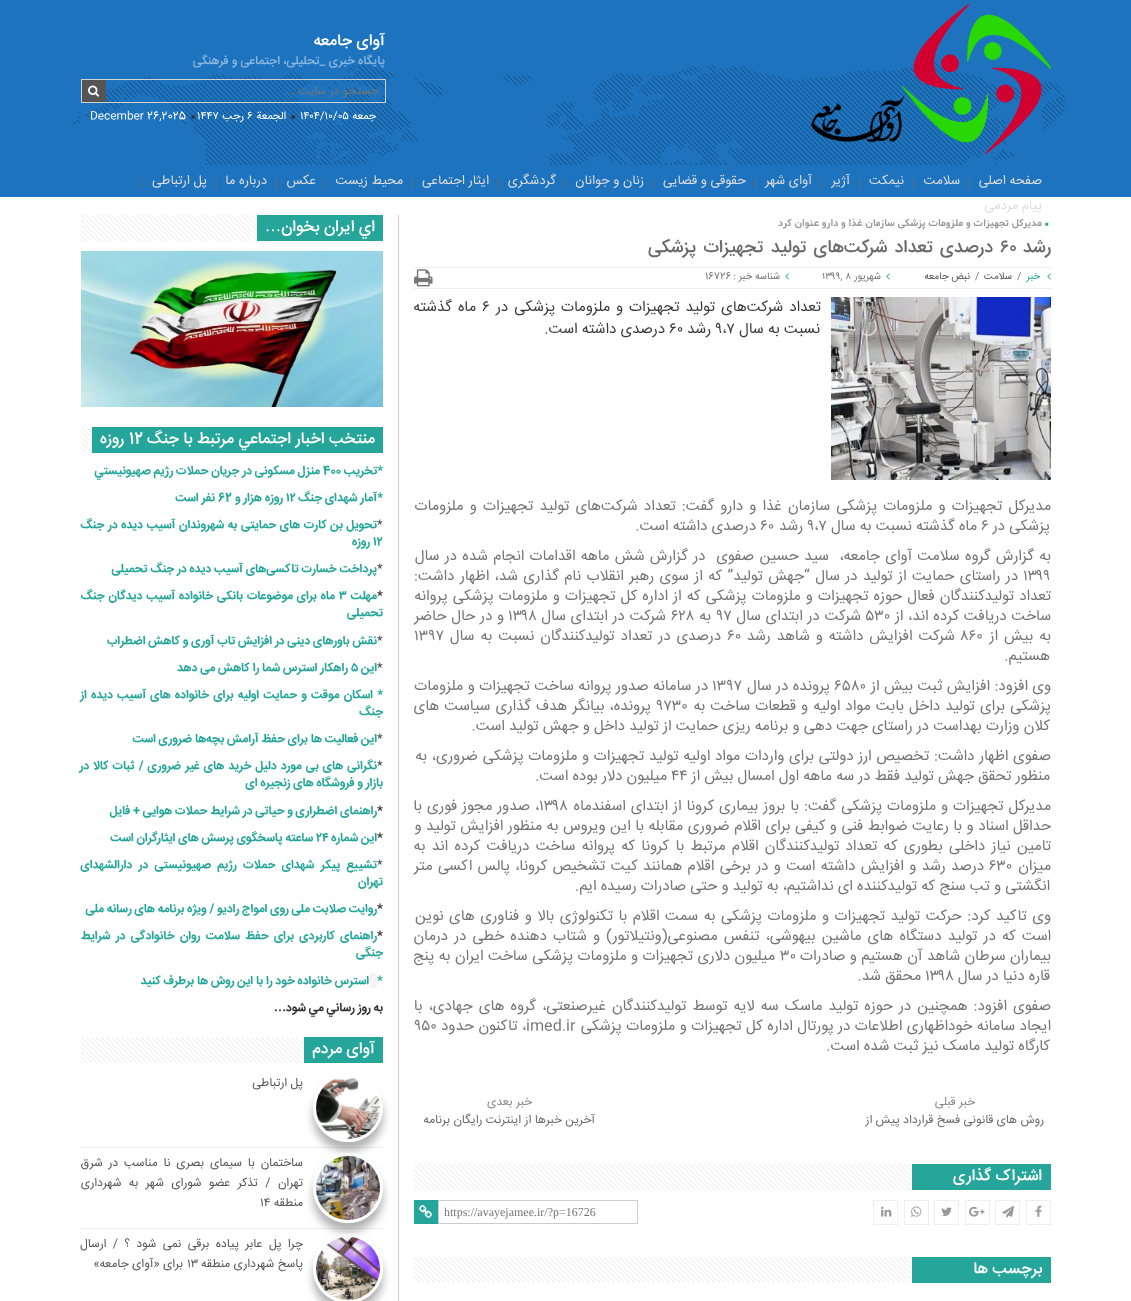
(async () => {
  const canvas = document.querySelector("canvas");
  canvas.width = 1131;
  canvas.height = 1301;
  const ctx = canvas.getContext("2d");
  ctx.miterLimit = 4;
  ctx.fontKerning = "normal";
  async function loadImage(src) {
    const img = new Image();
    img.src = src;
    await img.decode();
    return img;
  }
  let path;

  ctx.fillStyle = "#ffffff";
  ctx.fillRect(0, 0, 1131, 1301);
  ctx.fillStyle = "#1e73be";
  ctx.fillRect(0, 0, 1131, 197);
  ctx.drawImage(await loadImage("img/1.png"), 73, 62, 993, 103);
  ctx.drawImage(await loadImage("img/2.png"), 811, 4, 240, 150);
  ctx.strokeStyle = "#d1d1d1";
  ctx.strokeRect(81.5, 79.5, 304, 23);
  ctx.fillStyle = "#555555";
  ctx.fillRect(82, 80, 24, 22);
  ctx.drawImage(await loadImage("img/3.png"), 88, 85, 12, 12);
  ctx.fillStyle = "#eeeeee";
  ctx.fillRect(414, 267, 637, 1);
  ctx.fillRect(414, 288, 637, 1);
  ctx.drawImage(await loadImage("img/4.png"), 1047, 273, 4, 7);
  ctx.drawImage(await loadImage("img/4.png"), 886, 273, 4, 7);
  ctx.drawImage(await loadImage("img/4.png"), 785, 273, 4, 7);
  ctx.drawImage(await loadImage("img/5.png"), 414, 269, 19, 18);
  ctx.drawImage(await loadImage("img/6.png"), 831, 297, 220, 183);
  ctx.drawImage(await loadImage("img/7.png"), 414, 1164, 497, 26);
  ctx.fillStyle = "#26a69a";
  ctx.fillRect(912, 1164, 139, 26);
  ctx.strokeStyle = "#eeeeee";
  ctx.strokeRect(1026.5, 1200.5, 24, 24);
  ctx.drawImage(await loadImage("img/8.png"), 1035, 1205, 7, 12);
  ctx.strokeRect(995.5, 1200.5, 24, 24);
  ctx.drawImage(await loadImage("img/9.png"), 1002, 1205, 12, 13);
  ctx.strokeRect(965.5, 1200.5, 24, 24);
  ctx.drawImage(await loadImage("img/10.png"), 969, 1206, 16, 11);
  ctx.strokeRect(934.5, 1200.5, 24, 24);
  ctx.drawImage(await loadImage("img/11.png"), 941, 1207, 11, 9);
  ctx.strokeRect(904.5, 1200.5, 24, 24);
  ctx.drawImage(await loadImage("img/12.png"), 911, 1206, 11, 11);
  ctx.strokeRect(873.5, 1200.5, 24, 24);
  ctx.drawImage(await loadImage("img/13.png"), 881, 1206, 11, 11);
  ctx.strokeStyle = "#cccccc";
  ctx.strokeRect(438.5, 1200.5, 199, 23);
  ctx.fillRect(414, 1200, 24, 24);
  ctx.drawImage(await loadImage("img/14.png"), 419, 1205, 13, 13);
  ctx.drawImage(await loadImage("img/7.png"), 414, 1257, 497, 26);
  ctx.fillRect(912, 1257, 139, 26);
  ctx.fillStyle = "#cccccc";
  ctx.fillRect(398, 215, 1, 1086);
  ctx.drawImage(await loadImage("img/15.png"), 81, 215, 175, 26);
  ctx.fillStyle = "#26a69a";
  ctx.fillRect(257, 215, 126, 26);
  ctx.drawImage(await loadImage("img/16.png"), 81, 251, 302, 156);
  ctx.drawImage(await loadImage("img/17.png"), 81, 427, 10, 26);
  ctx.fillRect(92, 427, 291, 26);
  ctx.fillStyle = "#f9f2f4";
  ctx.beginPath();
  ctx.roundRect(369, 973, 8, 16, 4);
  ctx.fill();
  ctx.drawImage(await loadImage("img/18.png"), 81, 1037, 222, 26);
  ctx.fillStyle = "#26a69a";
  ctx.fillRect(304, 1037, 79, 26);
  ctx.fillStyle = "#eeeeee";
  ctx.fillRect(81, 1147, 302, 1);
  ctx.save();
  path = new Path2D("M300 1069H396V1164H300ZM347.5 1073H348.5C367.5 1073 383 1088.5 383 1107.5C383 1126.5 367.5 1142 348.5 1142H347.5C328.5 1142 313 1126.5 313 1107.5C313 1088.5 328.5 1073 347.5 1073Z");
  ctx.clip(path, "evenodd");
  ctx.fillStyle = "rgba(0, 0, 0, 0.3)";
  ctx.filter = "blur(4px)";
  ctx.beginPath();
  ctx.roundRect(313, 1082, 70, 69, 34.5);
  ctx.fill();
  ctx.filter = "none";
  ctx.restore();
  ctx.beginPath();
  ctx.roundRect(313.5, 1073.5, 69, 68, 34);
  ctx.strokeStyle = "#ffffff";
  ctx.stroke();
  ctx.drawImage(await loadImage("img/19.png"), 316, 1078, 64, 61);
  ctx.fillRect(81, 1228, 302, 1);
  ctx.save();
  path = new Path2D("M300 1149H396V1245H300ZM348 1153C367.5 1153 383 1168.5 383 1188C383 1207.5 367.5 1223 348 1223C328.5 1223 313 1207.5 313 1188C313 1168.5 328.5 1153 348 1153Z");
  ctx.clip(path, "evenodd");
  ctx.fillStyle = "rgba(0, 0, 0, 0.3)";
  ctx.filter = "blur(4px)";
  ctx.beginPath();
  ctx.roundRect(313, 1162, 70, 70, 35);
  ctx.fill();
  ctx.filter = "none";
  ctx.restore();
  ctx.beginPath();
  ctx.arc(348, 1188, 34.5, 0, Math.PI * 2);
  ctx.stroke();
  ctx.drawImage(await loadImage("img/20.png"), 316, 1156, 64, 64);
  ctx.save();
  path = new Path2D("M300 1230H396V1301H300ZM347.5 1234H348.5C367.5 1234 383 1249.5 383 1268.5C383 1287.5 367.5 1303 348.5 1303H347.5C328.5 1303 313 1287.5 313 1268.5C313 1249.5 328.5 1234 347.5 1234Z");
  ctx.clip(path, "evenodd");
  ctx.fillStyle = "rgba(0, 0, 0, 0.3)";
  ctx.filter = "blur(4px)";
  ctx.beginPath();
  ctx.roundRect(313, 1243, 70, 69, 34.5);
  ctx.fill();
  ctx.filter = "none";
  ctx.restore();
  ctx.beginPath();
  ctx.roundRect(313.5, 1234.5, 69, 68, 34);
  ctx.stroke();
  ctx.drawImage(await loadImage("img/21.png"), 316, 1237, 64, 63);
  ctx.direction = "rtl";
  ctx.font = "500 16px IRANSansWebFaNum";
  ctx.fillStyle = "#ffffff";
  ctx.fillText("آوای جامعه", 385, 45);
  ctx.font = "500 12px IRANSansWebFaNum";
  ctx.fillStyle = "#8eb9de";
  ctx.fillText("پایگاه خبری _تحلیلی، اجتماعی و فرهنگی", 385, 64);
  ctx.font = "12px IRANSansWebFaNum";
  ctx.fillStyle = "#757575";
  ctx.fillText("جستجو در سایت ...", 379, 94);
  ctx.font = "11px IRANSansWebFaNum";
  ctx.fillStyle = "#ffffff";
  ctx.fillText("جمعه", 376, 119);
  ctx.direction = "ltr";
  ctx.fillText("۱۴۰۴/۱۰/۰۵", 300, 119);
  ctx.font = "7px Liberation Serif";
  ctx.fillStyle = "#333333";
  ctx.fillText("■", 291, 119);
  ctx.direction = "rtl";
  ctx.font = "11px IRANSansWebFaNum";
  ctx.fillStyle = "#ffffff";
  ctx.fillText("الجمعة", 286, 119);
  ctx.direction = "ltr";
  ctx.fillText("۶", 247, 119);
  ctx.direction = "rtl";
  ctx.fillText("رجب", 244, 119);
  ctx.direction = "ltr";
  ctx.fillText("۱۴۴۷", 197, 119);
  ctx.font = "7px Liberation Serif";
  ctx.fillStyle = "#333333";
  ctx.fillText("■", 191, 119);
  ctx.font = "11px IRANSansWebFaNum";
  ctx.fillStyle = "#ffffff";
  ctx.fillText("December 26,2025", 90, 119);
  ctx.direction = "rtl";
  ctx.font = "13px IRANSansWebFaNum";
  ctx.fillStyle = "#dddddd";
  ctx.fillText("صفحه اصلی", 1042, 184);
  ctx.direction = "ltr";
  ctx.font = "12px IRANSansWebFaNum";
  ctx.fillStyle = "#6a6a6a";
  ctx.fillText("|", 968, 187);
  ctx.direction = "rtl";
  ctx.font = "13px IRANSansWebFaNum";
  ctx.fillStyle = "#dddddd";
  ctx.fillText("سلامت", 960, 184);
  ctx.direction = "ltr";
  ctx.font = "12px IRANSansWebFaNum";
  ctx.fillStyle = "#6a6a6a";
  ctx.fillText("|", 912, 187);
  ctx.direction = "rtl";
  ctx.font = "13px IRANSansWebFaNum";
  ctx.fillStyle = "#dddddd";
  ctx.fillText("نیمکت", 904, 184);
  ctx.direction = "ltr";
  ctx.font = "12px IRANSansWebFaNum";
  ctx.fillStyle = "#6a6a6a";
  ctx.fillText("|", 858, 187);
  ctx.direction = "rtl";
  ctx.font = "13px IRANSansWebFaNum";
  ctx.fillStyle = "#dddddd";
  ctx.fillText("آژیر", 850, 184);
  ctx.direction = "ltr";
  ctx.font = "12px IRANSansWebFaNum";
  ctx.fillStyle = "#6a6a6a";
  ctx.fillText("|", 820, 187);
  ctx.direction = "rtl";
  ctx.font = "13px IRANSansWebFaNum";
  ctx.fillStyle = "#dddddd";
  ctx.fillText("آوای شهر", 812, 184);
  ctx.direction = "ltr";
  ctx.font = "12px IRANSansWebFaNum";
  ctx.fillStyle = "#6a6a6a";
  ctx.fillText("|", 754, 187);
  ctx.direction = "rtl";
  ctx.font = "13px IRANSansWebFaNum";
  ctx.fillStyle = "#dddddd";
  ctx.fillText("حقوقی و قضایی", 746, 184);
  ctx.direction = "ltr";
  ctx.font = "12px IRANSansWebFaNum";
  ctx.fillStyle = "#6a6a6a";
  ctx.fillText("|", 652, 187);
  ctx.direction = "rtl";
  ctx.font = "13px IRANSansWebFaNum";
  ctx.fillStyle = "#dddddd";
  ctx.fillText("زنان و جوانان", 644, 184);
  ctx.direction = "ltr";
  ctx.font = "12px IRANSansWebFaNum";
  ctx.fillStyle = "#6a6a6a";
  ctx.fillText("|", 564, 187);
  ctx.direction = "rtl";
  ctx.font = "13px IRANSansWebFaNum";
  ctx.fillStyle = "#dddddd";
  ctx.fillText("گردشگری", 556, 184);
  ctx.direction = "ltr";
  ctx.font = "12px IRANSansWebFaNum";
  ctx.fillStyle = "#6a6a6a";
  ctx.fillText("|", 497, 187);
  ctx.direction = "rtl";
  ctx.font = "13px IRANSansWebFaNum";
  ctx.fillStyle = "#dddddd";
  ctx.fillText("ایثار اجتماعی", 489, 184);
  ctx.direction = "ltr";
  ctx.font = "12px IRANSansWebFaNum";
  ctx.fillStyle = "#6a6a6a";
  ctx.fillText("|", 411, 187);
  ctx.direction = "rtl";
  ctx.font = "13px IRANSansWebFaNum";
  ctx.fillStyle = "#dddddd";
  ctx.fillText("محیط زیست", 403, 184);
  ctx.direction = "ltr";
  ctx.font = "12px IRANSansWebFaNum";
  ctx.fillStyle = "#6a6a6a";
  ctx.fillText("|", 324, 187);
  ctx.direction = "rtl";
  ctx.font = "13px IRANSansWebFaNum";
  ctx.fillStyle = "#dddddd";
  ctx.fillText("عکس", 316, 184);
  ctx.direction = "ltr";
  ctx.font = "12px IRANSansWebFaNum";
  ctx.fillStyle = "#6a6a6a";
  ctx.fillText("|", 275, 187);
  ctx.direction = "rtl";
  ctx.font = "13px IRANSansWebFaNum";
  ctx.fillStyle = "#dddddd";
  ctx.fillText("درباره ما", 267, 184);
  ctx.direction = "ltr";
  ctx.font = "12px IRANSansWebFaNum";
  ctx.fillStyle = "#6a6a6a";
  ctx.fillText("|", 215, 187);
  ctx.direction = "rtl";
  ctx.font = "13px IRANSansWebFaNum";
  ctx.fillStyle = "#dddddd";
  ctx.fillText("پل ارتباطی", 207, 184);
  ctx.direction = "ltr";
  ctx.font = "12px IRANSansWebFaNum";
  ctx.fillStyle = "#6a6a6a";
  ctx.fillText("|", 140, 187);
  ctx.direction = "rtl";
  ctx.font = "13px IRANSansWebFaNum";
  ctx.fillStyle = "#dddddd";
  ctx.fillText("پیام مردمی", 1042, 209);
  ctx.direction = "ltr";
  ctx.font = "6px Liberation Serif";
  ctx.fillStyle = "#26a69a";
  ctx.fillText("■", 1045, 226);
  ctx.direction = "rtl";
  ctx.font = "bold 10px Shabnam";
  ctx.fillStyle = "#999999";
  ctx.fillText("مدیرکل تجهیزات و ملزومات پزشکی سازمان غذا و دارو عنوان کرد", 1042, 226);
  ctx.letterSpacing = "-0.4px";
  ctx.font = "500 18px IRANSansWebFaNum";
  ctx.fillStyle = "#6a6a6a";
  ctx.fillText("رشد", 1051, 252);
  ctx.direction = "ltr";
  ctx.fillText("۶۰", 1000, 252);
  ctx.wordSpacing = "2.75px";
  ctx.direction = "rtl";
  ctx.fillText("درصدی تعداد شرکت‌های تولید تجهیزات پزشکی", 993, 252);
  ctx.letterSpacing = "0px";
  ctx.wordSpacing = "0px";
  ctx.font = "10px IRANSansWebFaNum";
  ctx.fillStyle = "#26a69a";
  ctx.fillText("خبر", 1040, 279);
  ctx.direction = "ltr";
  ctx.fillStyle = "#757575";
  ctx.fillText("/", 1017, 279);
  ctx.direction = "rtl";
  ctx.fillStyle = "#555555";
  ctx.fillText("سلامت", 1012, 279);
  ctx.direction = "ltr";
  ctx.fillStyle = "#757575";
  ctx.fillText("/", 975, 279);
  ctx.direction = "rtl";
  ctx.fillStyle = "#555555";
  ctx.fillText("نبض جامعه", 970, 279);
  ctx.fillStyle = "#757575";
  ctx.fillText("شهریور", 881, 279);
  ctx.direction = "ltr";
  ctx.fillText("۱۳۹۹, ۸", 822, 279);
  ctx.direction = "rtl";
  ctx.fillText("شناسه خبر :", 780, 279);
  ctx.direction = "ltr";
  ctx.fillText("16726", 705, 279);
  ctx.wordSpacing = "1.75px";
  ctx.direction = "rtl";
  ctx.font = "15px IRANSansWebFaNum";
  ctx.fillStyle = "#3b3b3b";
  ctx.fillText("تعداد شرکت‌های تولید تجهیزات و ملزومات پزشکی در", 821, 311);
  ctx.wordSpacing = "0px";
  ctx.direction = "ltr";
  ctx.fillText("۶", 482, 311);
  ctx.wordSpacing = "1.75px";
  ctx.direction = "rtl";
  ctx.fillText("ماه گذشته", 476, 311);
  ctx.wordSpacing = "0px";
  ctx.fillText("نسبت به سال", 820, 333);
  ctx.direction = "ltr";
  ctx.fillText("۹،۷", 715, 333);
  ctx.direction = "rtl";
  ctx.fillText("رشد", 711, 333);
  ctx.direction = "ltr";
  ctx.fillText("۶۰", 669, 333);
  ctx.direction = "rtl";
  ctx.fillText("درصدی داشته است.", 665, 333);
  ctx.wordSpacing = "2px";
  ctx.fillStyle = "#757575";
  ctx.fillText("مدیرکل تجهیزات و ملزومات پزشکی سازمان غذا و دارو گفت: تعداد شرکت‌های تولید تجهیزات و ملزومات", 1051, 510);
  ctx.wordSpacing = "0px";
  ctx.fillText("پزشکی در", 1050, 530);
  ctx.direction = "ltr";
  ctx.fillText("۶", 981, 530);
  ctx.direction = "rtl";
  ctx.fillText("ماه گذشته نسبت به سال", 977, 530);
  ctx.direction = "ltr";
  ctx.fillText("۹،۷", 807, 530);
  ctx.direction = "rtl";
  ctx.fillText("رشد", 803, 530);
  ctx.direction = "ltr";
  ctx.fillText("۶۰", 760, 530);
  ctx.direction = "rtl";
  ctx.fillText("درصدی داشته است.", 756, 530);
  ctx.wordSpacing = "1.1px";
  ctx.fillText("به گزارش گروه سلامت آوای جامعه،  سید حسین صفوی  در گزارش شش ماهه اقدامات انجام شده در سال", 1051, 560);
  ctx.wordSpacing = "0px";
  ctx.direction = "ltr";
  ctx.fillText("۱۳۹۹", 1023, 580);
  ctx.wordSpacing = "1.25px";
  ctx.direction = "rtl";
  ctx.fillText("در راستای حمایت از تولید در سال “جهش تولید” که از سوی رهبر انقلاب نام گذاری شد، اظهار داشت:", 1018, 580);
  ctx.wordSpacing = "0.9px";
  ctx.fillText("تعداد تولیدکنندگان فعال حوزه تجهیزات و ملزومات پزشکی که از اداره کل تجهیزات و ملزومات پزشکی پروانه", 1051, 600);
  ctx.wordSpacing = "0.5px";
  ctx.fillText("ساخت دریافت کرده اند، از", 1051, 620);
  ctx.wordSpacing = "0px";
  ctx.direction = "ltr";
  ctx.fillText("۵۳۰", 866, 620);
  ctx.wordSpacing = "0.5px";
  ctx.direction = "rtl";
  ctx.fillText("شرکت در ابتدای سال", 861, 620);
  ctx.wordSpacing = "0px";
  ctx.direction = "ltr";
  ctx.fillText("۹۷", 716, 620);
  ctx.direction = "rtl";
  ctx.fillText("به", 711, 620);
  ctx.direction = "ltr";
  ctx.fillText("۶۲۸", 671, 620);
  ctx.wordSpacing = "0.5px";
  ctx.direction = "rtl";
  ctx.fillText("شرکت در ابتدای سال", 666, 620);
  ctx.wordSpacing = "0px";
  ctx.direction = "ltr";
  ctx.fillText("۱۳۹۸", 508, 620);
  ctx.wordSpacing = "0.5px";
  ctx.direction = "rtl";
  ctx.fillText("و در حال حاضر", 504, 620);
  ctx.wordSpacing = "1.75px";
  ctx.fillText("به بیش از", 1051, 640);
  ctx.wordSpacing = "0px";
  ctx.direction = "ltr";
  ctx.fillText("۸۶۰", 961, 640);
  ctx.wordSpacing = "1.75px";
  ctx.direction = "rtl";
  ctx.fillText("شرکت افزایش داشته و شاهد رشد", 955, 640);
  ctx.wordSpacing = "0px";
  ctx.direction = "ltr";
  ctx.fillText("۶۰", 727, 640);
  ctx.wordSpacing = "1.75px";
  ctx.direction = "rtl";
  ctx.fillText("درصدی در تعداد تولیدکنندگان نسبت به سال", 721, 640);
  ctx.wordSpacing = "0px";
  ctx.direction = "ltr";
  ctx.fillText("۱۳۹۷", 414, 640);
  ctx.direction = "rtl";
  ctx.fillText("هستیم.", 1050, 660);
  ctx.wordSpacing = "0.25px";
  ctx.fillText("وی افزود: افزایش ثبت بیش از", 1051, 690);
  ctx.wordSpacing = "0px";
  ctx.direction = "ltr";
  ctx.fillText("۶۵۸۰", 834, 690);
  ctx.wordSpacing = "0.25px";
  ctx.direction = "rtl";
  ctx.fillText("پرونده در سال", 830, 690);
  ctx.wordSpacing = "0px";
  ctx.direction = "ltr";
  ctx.fillText("۱۳۹۷", 712, 690);
  ctx.wordSpacing = "0.25px";
  ctx.direction = "rtl";
  ctx.fillText("در سامانه صدور پروانه ساخت تجهیزات و ملزومات", 708, 690);
  ctx.wordSpacing = "0.9px";
  ctx.fillText("پزشکی برای تولید داخل بابت مواد اولیه و قطعات ساخت به", 1051, 710);
  ctx.wordSpacing = "0px";
  ctx.direction = "ltr";
  ctx.fillText("۹۷۳۰", 656, 710);
  ctx.wordSpacing = "0.9px";
  ctx.direction = "rtl";
  ctx.fillText("پرونده، بیانگر هدف گذاری سیاست های", 651, 710);
  ctx.wordSpacing = "0px";
  ctx.fillText("کلان وزارت بهداست در راستای جهت دهی و برنامه ریزی حمایت از تولید داخل و جهش تولید است.", 1050, 730);
  ctx.wordSpacing = "0.5px";
  ctx.fillText("صفوی اظهار داشت: تخصیص ارز دولتی برای واردات مواد اولیه تولید تجهیزات و ملزومات پزشکی ضروری، به", 1051, 760);
  ctx.wordSpacing = "0px";
  ctx.fillText("منظور تحقق جهش تولید فقط در سه ماهه اول امسال بیش از", 1050, 780);
  ctx.direction = "ltr";
  ctx.fillText("۴۴", 671, 780);
  ctx.direction = "rtl";
  ctx.fillText("میلیون دلار بوده است.", 667, 780);
  ctx.wordSpacing = "0.75px";
  ctx.fillText("مدیرکل تجهیزات و ملزومات پزشکی گفت: با بروز بیماری کرونا از ابتدای اسفندماه", 1051, 810);
  ctx.wordSpacing = "0px";
  ctx.direction = "ltr";
  ctx.fillText("۱۳۹۸", 539, 810);
  ctx.wordSpacing = "0.75px";
  ctx.direction = "rtl";
  ctx.fillText("، صدور مجوز فوری با", 539, 810);
  ctx.wordSpacing = "0.3px";
  ctx.fillText("حداقل اسناد و با رعایت ضوابط فنی و کیفی برای اقلام ضروری مقابله با این ویروس به منظور افزایش تولید و", 1051, 830);
  ctx.wordSpacing = "2.1px";
  ctx.fillText("تامین نیاز داخلی بطوری که تعداد تولیدکنندگان اقلام مرتبط با کرونا که پروانه ساخت دریافت کرده اند به", 1051, 850);
  ctx.wordSpacing = "0px";
  ctx.fillText("میزان", 1051, 870);
  ctx.direction = "ltr";
  ctx.fillText("۶۳۰", 989, 870);
  ctx.wordSpacing = "1.2px";
  ctx.direction = "rtl";
  ctx.fillText("درصد رشد و افزایش داشته است و در برخی اقلام همانند کیت تشخیص کرونا، پالس اکسی متر", 984, 870);
  ctx.wordSpacing = "0px";
  ctx.fillText("انگشتی و تب سنج که تولیدکننده ای نداشتیم، به تولید و حتی صادرات رسیده ایم‌.", 1050, 890);
  ctx.wordSpacing = "1.3px";
  ctx.fillText("وی تاکید کرد: حرکت تولید تجهیزات و ملزومات پزشکی به سمت اقلام با تکنولوژی بالا و فناوری های نوین", 1051, 920);
  ctx.wordSpacing = "2px";
  ctx.fillText("است که در تولید دستگاه های ماشین بیهوشی، تنفس مصنوعی(ونتیلاتور) و شتاب دهنده خطی در درمان", 1051, 940);
  ctx.wordSpacing = "0.25px";
  ctx.fillText("بیماران سرطان شاهد آن هستیم و صادرات", 1051, 960);
  ctx.wordSpacing = "0px";
  ctx.direction = "ltr";
  ctx.fillText("۳۰", 780, 960);
  ctx.wordSpacing = "0.25px";
  ctx.direction = "rtl";
  ctx.fillText("میلیون دلاری تجهیزات و ملزومات پزشکی ساخت ایران به پنج", 775, 960);
  ctx.wordSpacing = "0px";
  ctx.fillText("قاره دنیا در سال", 1050, 980);
  ctx.direction = "ltr";
  ctx.fillText("۱۳۹۸", 925, 980);
  ctx.direction = "rtl";
  ctx.fillText("محقق شد.", 921, 980);
  ctx.wordSpacing = "1.9px";
  ctx.fillText("صفوی افزود: همچنین در حوزه تولید ماسک سه لایه توسط تولیدکنندگان غیرصنعتی، گروه های جهادی، با", 1051, 1010);
  ctx.wordSpacing = "0.25px";
  ctx.fillText("ایجاد سامانه خوداظهاری اطلاعات در پورتال اداره کل تجهیزات و ملزومات پزشکی", 1051, 1030);
  ctx.wordSpacing = "0px";
  ctx.direction = "ltr";
  ctx.fillText("imed.ir", 526, 1030);
  ctx.wordSpacing = "0.25px";
  ctx.direction = "rtl";
  ctx.fillText("، تاکنون حدود", 526, 1030);
  ctx.wordSpacing = "0px";
  ctx.direction = "ltr";
  ctx.fillText("۹۵۰", 414, 1030);
  ctx.direction = "rtl";
  ctx.fillText("کارگاه تولید ماسک نیز ثبت شده است.", 1050, 1050);
  ctx.font = "12px IRANSansWebFaNum";
  ctx.fillStyle = "#888888";
  ctx.fillText("خبر قبلی", 975, 1105);
  ctx.fillStyle = "#6a6a6a";
  ctx.fillText("روش های قانونی فسخ قرارداد پیش از", 1044, 1123);
  ctx.fillStyle = "#888888";
  ctx.fillText("خبر بعدی", 532, 1105);
  ctx.fillStyle = "#6a6a6a";
  ctx.fillText("آخرین خبرها از اینترنت رایگان برنامه", 595, 1123);
  ctx.font = "500 16px IRANSansWebFaNum";
  ctx.fillStyle = "#ffffff";
  ctx.fillText("اشتراک گذاری", 1042, 1180);
  ctx.direction = "ltr";
  ctx.font = "12px Liberation Serif";
  ctx.fillStyle = "#757575";
  ctx.fillText("https://avayejamee.ir/?p=16726", 444, 1216);
  ctx.direction = "rtl";
  ctx.font = "500 16px IRANSansWebFaNum";
  ctx.fillStyle = "#ffffff";
  ctx.fillText("برچسب ها", 1042, 1273);
  ctx.fillText("اي ايران بخوان", 375, 231);
  ctx.font = "16px Liberation Serif";
  ctx.fillText("…", 281, 231);
  ctx.font = "500 16px IRANSansWebFaNum";
  ctx.fillText("منتخب اخبار اجتماعي مرتبط با جنگ", 375, 443);
  ctx.direction = "ltr";
  ctx.fillText("12", 129, 443);
  ctx.direction = "rtl";
  ctx.fillText("روزه", 124, 443);
  ctx.font = "bold 12px IRANSansWebFaNum";
  ctx.fillStyle = "#26a69a";
  ctx.fillText("*تخريب", 383, 474);
  ctx.direction = "ltr";
  ctx.fillText("400", 323, 474);
  ctx.direction = "rtl";
  ctx.fillText("منزل مسکونی در جريان حملات رژيم صهيونيستي", 320, 474);
  ctx.fillText("*آمار شهدای جنگ", 383, 501);
  ctx.direction = "ltr";
  ctx.fillText("۱۲", 286, 501);
  ctx.direction = "rtl";
  ctx.fillText("روزه هزار و", 283, 501);
  ctx.direction = "ltr";
  ctx.fillText("62", 218, 501);
  ctx.direction = "rtl";
  ctx.fillText("نفر است", 215, 501);
  ctx.direction = "ltr";
  ctx.font = "12px IRANSansWebFaNum";
  ctx.fillStyle = "#333333";
  ctx.fillText("*", 377, 528);
  ctx.wordSpacing = "0.75px";
  ctx.direction = "rtl";
  ctx.font = "bold 12px IRANSansWebFaNum";
  ctx.fillStyle = "#26a69a";
  ctx.fillText("تحویل بن‌ کارت های حمایتی به شهروندان آسیب دیده در جنگ", 377, 528);
  ctx.wordSpacing = "0px";
  ctx.direction = "ltr";
  ctx.fillText("۱۲", 373, 545);
  ctx.direction = "rtl";
  ctx.fillText("روزه", 370, 545);
  ctx.direction = "ltr";
  ctx.font = "12px IRANSansWebFaNum";
  ctx.fillStyle = "#333333";
  ctx.fillText("*", 377, 572);
  ctx.direction = "rtl";
  ctx.font = "bold 12px IRANSansWebFaNum";
  ctx.fillStyle = "#26a69a";
  ctx.fillText("پرداخت خسارت تاکسی‌های آسیب دیده در جنگ تحمیلی", 377, 572);
  ctx.direction = "ltr";
  ctx.fillStyle = "#333333";
  ctx.fillText("*", 377, 599);
  ctx.direction = "rtl";
  ctx.fillStyle = "#26a69a";
  ctx.fillText("مهلت", 377, 599);
  ctx.direction = "ltr";
  ctx.fillText("۳", 339, 599);
  ctx.wordSpacing = "1px";
  ctx.direction = "rtl";
  ctx.fillText("ماه برای موضوعات بانکی خانواده آسیب دیدگان جنگ", 335, 599);
  ctx.wordSpacing = "0px";
  ctx.fillText("تحمیلی", 383, 616);
  ctx.direction = "ltr";
  ctx.font = "12px IRANSansWebFaNum";
  ctx.fillStyle = "#333333";
  ctx.fillText("*", 377, 644);
  ctx.direction = "rtl";
  ctx.font = "bold 12px IRANSansWebFaNum";
  ctx.fillStyle = "#26a69a";
  ctx.fillText("نقش باورهای دینی در افزایش تاب آوری و کاهش اضطراب", 377, 644);
  ctx.direction = "ltr";
  ctx.font = "12px IRANSansWebFaNum";
  ctx.fillStyle = "#333333";
  ctx.fillText("*", 377, 671);
  ctx.direction = "rtl";
  ctx.font = "bold 12px IRANSansWebFaNum";
  ctx.fillStyle = "#26a69a";
  ctx.fillText("این", 377, 671);
  ctx.direction = "ltr";
  ctx.fillText("۵", 351, 671);
  ctx.direction = "rtl";
  ctx.fillText("راهکار استرس شما را کاهش می دهد", 348, 671);
  ctx.wordSpacing = "1.4px";
  ctx.fillText("* اسکان موقت و حمایت اولیه برای خانواده های آسیب‌ دیده از", 383, 698);
  ctx.wordSpacing = "0px";
  ctx.fillText("جنگ", 383, 715);
  ctx.direction = "ltr";
  ctx.font = "12px IRANSansWebFaNum";
  ctx.fillStyle = "#333333";
  ctx.fillText("*", 377, 742);
  ctx.direction = "rtl";
  ctx.font = "bold 12px IRANSansWebFaNum";
  ctx.fillStyle = "#26a69a";
  ctx.fillText("این فعالیت ها برای حفظ آرامش بچه‌ها ضروری است", 377, 742);
  ctx.direction = "ltr";
  ctx.font = "12px IRANSansWebFaNum";
  ctx.fillStyle = "#333333";
  ctx.fillText("*", 377, 769);
  ctx.wordSpacing = "1.25px";
  ctx.direction = "rtl";
  ctx.font = "bold 12px IRANSansWebFaNum";
  ctx.fillStyle = "#26a69a";
  ctx.fillText("نگرانی های بی مورد دلیل خرید های غیر ضروری / ثبات کالا در", 377, 769);
  ctx.wordSpacing = "0px";
  ctx.fillText("بازار و فروشگاه های زنجیره ای", 383, 786);
  ctx.direction = "ltr";
  ctx.fillStyle = "#333333";
  ctx.fillText("*", 377, 814);
  ctx.direction = "rtl";
  ctx.fillStyle = "#26a69a";
  ctx.fillText("راهنمای اضطراری و حیاتی در شرایط حملات هوایی + فایل", 377, 814);
  ctx.direction = "ltr";
  ctx.fillStyle = "#333333";
  ctx.fillText("*", 377, 841);
  ctx.direction = "rtl";
  ctx.fillStyle = "#26a69a";
  ctx.fillText("این شماره", 377, 841);
  ctx.direction = "ltr";
  ctx.fillText("۲۴", 316, 841);
  ctx.direction = "rtl";
  ctx.fillText("ساعته پاسخگوی پرسش های ایثارگران است", 313, 841);
  ctx.direction = "ltr";
  ctx.font = "12px IRANSansWebFaNum";
  ctx.fillStyle = "#333333";
  ctx.fillText("*", 377, 868);
  ctx.wordSpacing = "3.5px";
  ctx.direction = "rtl";
  ctx.font = "bold 12px IRANSansWebFaNum";
  ctx.fillStyle = "#26a69a";
  ctx.fillText("تشییع پیکر شهدای حملات رژیم صهیونیستی در دارالشهدای", 377, 868);
  ctx.wordSpacing = "0px";
  ctx.fillText("تهران", 383, 885);
  ctx.direction = "ltr";
  ctx.fillStyle = "#333333";
  ctx.fillText("*", 377, 912);
  ctx.direction = "rtl";
  ctx.fillStyle = "#26a69a";
  ctx.fillText("روایت صلابت ملی روی امواج رادیو / ویژه برنامه های رسانه ملی", 377, 912);
  ctx.direction = "ltr";
  ctx.fillStyle = "#333333";
  ctx.fillText("*", 377, 939);
  ctx.wordSpacing = "2.5px";
  ctx.direction = "rtl";
  ctx.fillStyle = "#26a69a";
  ctx.fillText("راهنمای کاربردی برای حفظ سلامت روان خانوادگی در شرایط", 377, 939);
  ctx.wordSpacing = "0px";
  ctx.fillText("جنگی", 383, 956);
  ctx.direction = "ltr";
  ctx.fillText("*", 377, 984);
  ctx.direction = "rtl";
  ctx.fillText("استرس خانواده خود را با این روش ها برطرف کنید", 369, 984);
  ctx.fillStyle = "#333333";
  ctx.fillText("به روز رساني مي شود", 383, 1011);
  ctx.font = "bold 12px Liberation Serif";
  ctx.fillText("…", 286, 1011);
  ctx.font = "500 16px IRANSansWebFaNum";
  ctx.fillStyle = "#ffffff";
  ctx.fillText("آوای مردم", 375, 1053);
  ctx.font = "12px IRANSansWebFaNum";
  ctx.fillStyle = "#555555";
  ctx.fillText("پل ارتباطی", 303, 1086);
  ctx.wordSpacing = "2.5px";
  ctx.fillText("ساختمان با سیمای بصری نا مناسب در شرق", 303, 1166);
  ctx.wordSpacing = "4px";
  ctx.fillText("تهران / تذکر عضو شورای شهر به شهرداری", 303, 1186);
  ctx.wordSpacing = "0px";
  ctx.fillText("منطقه", 303, 1206);
  ctx.direction = "ltr";
  ctx.fillText("۱۴", 260, 1206);
  ctx.wordSpacing = "3px";
  ctx.direction = "rtl";
  ctx.fillText("چرا پل عابر پیاده برقی نمی شود ؟ / ارسال", 303, 1247);
  ctx.wordSpacing = "0px";
  ctx.fillText("پاسخ شهرداری منطقه", 303, 1267);
  ctx.direction = "ltr";
  ctx.fillText("۱۳", 187, 1267);
  ctx.direction = "rtl";
  ctx.fillText("برای «آوای جامعه»", 183, 1267);
})();
